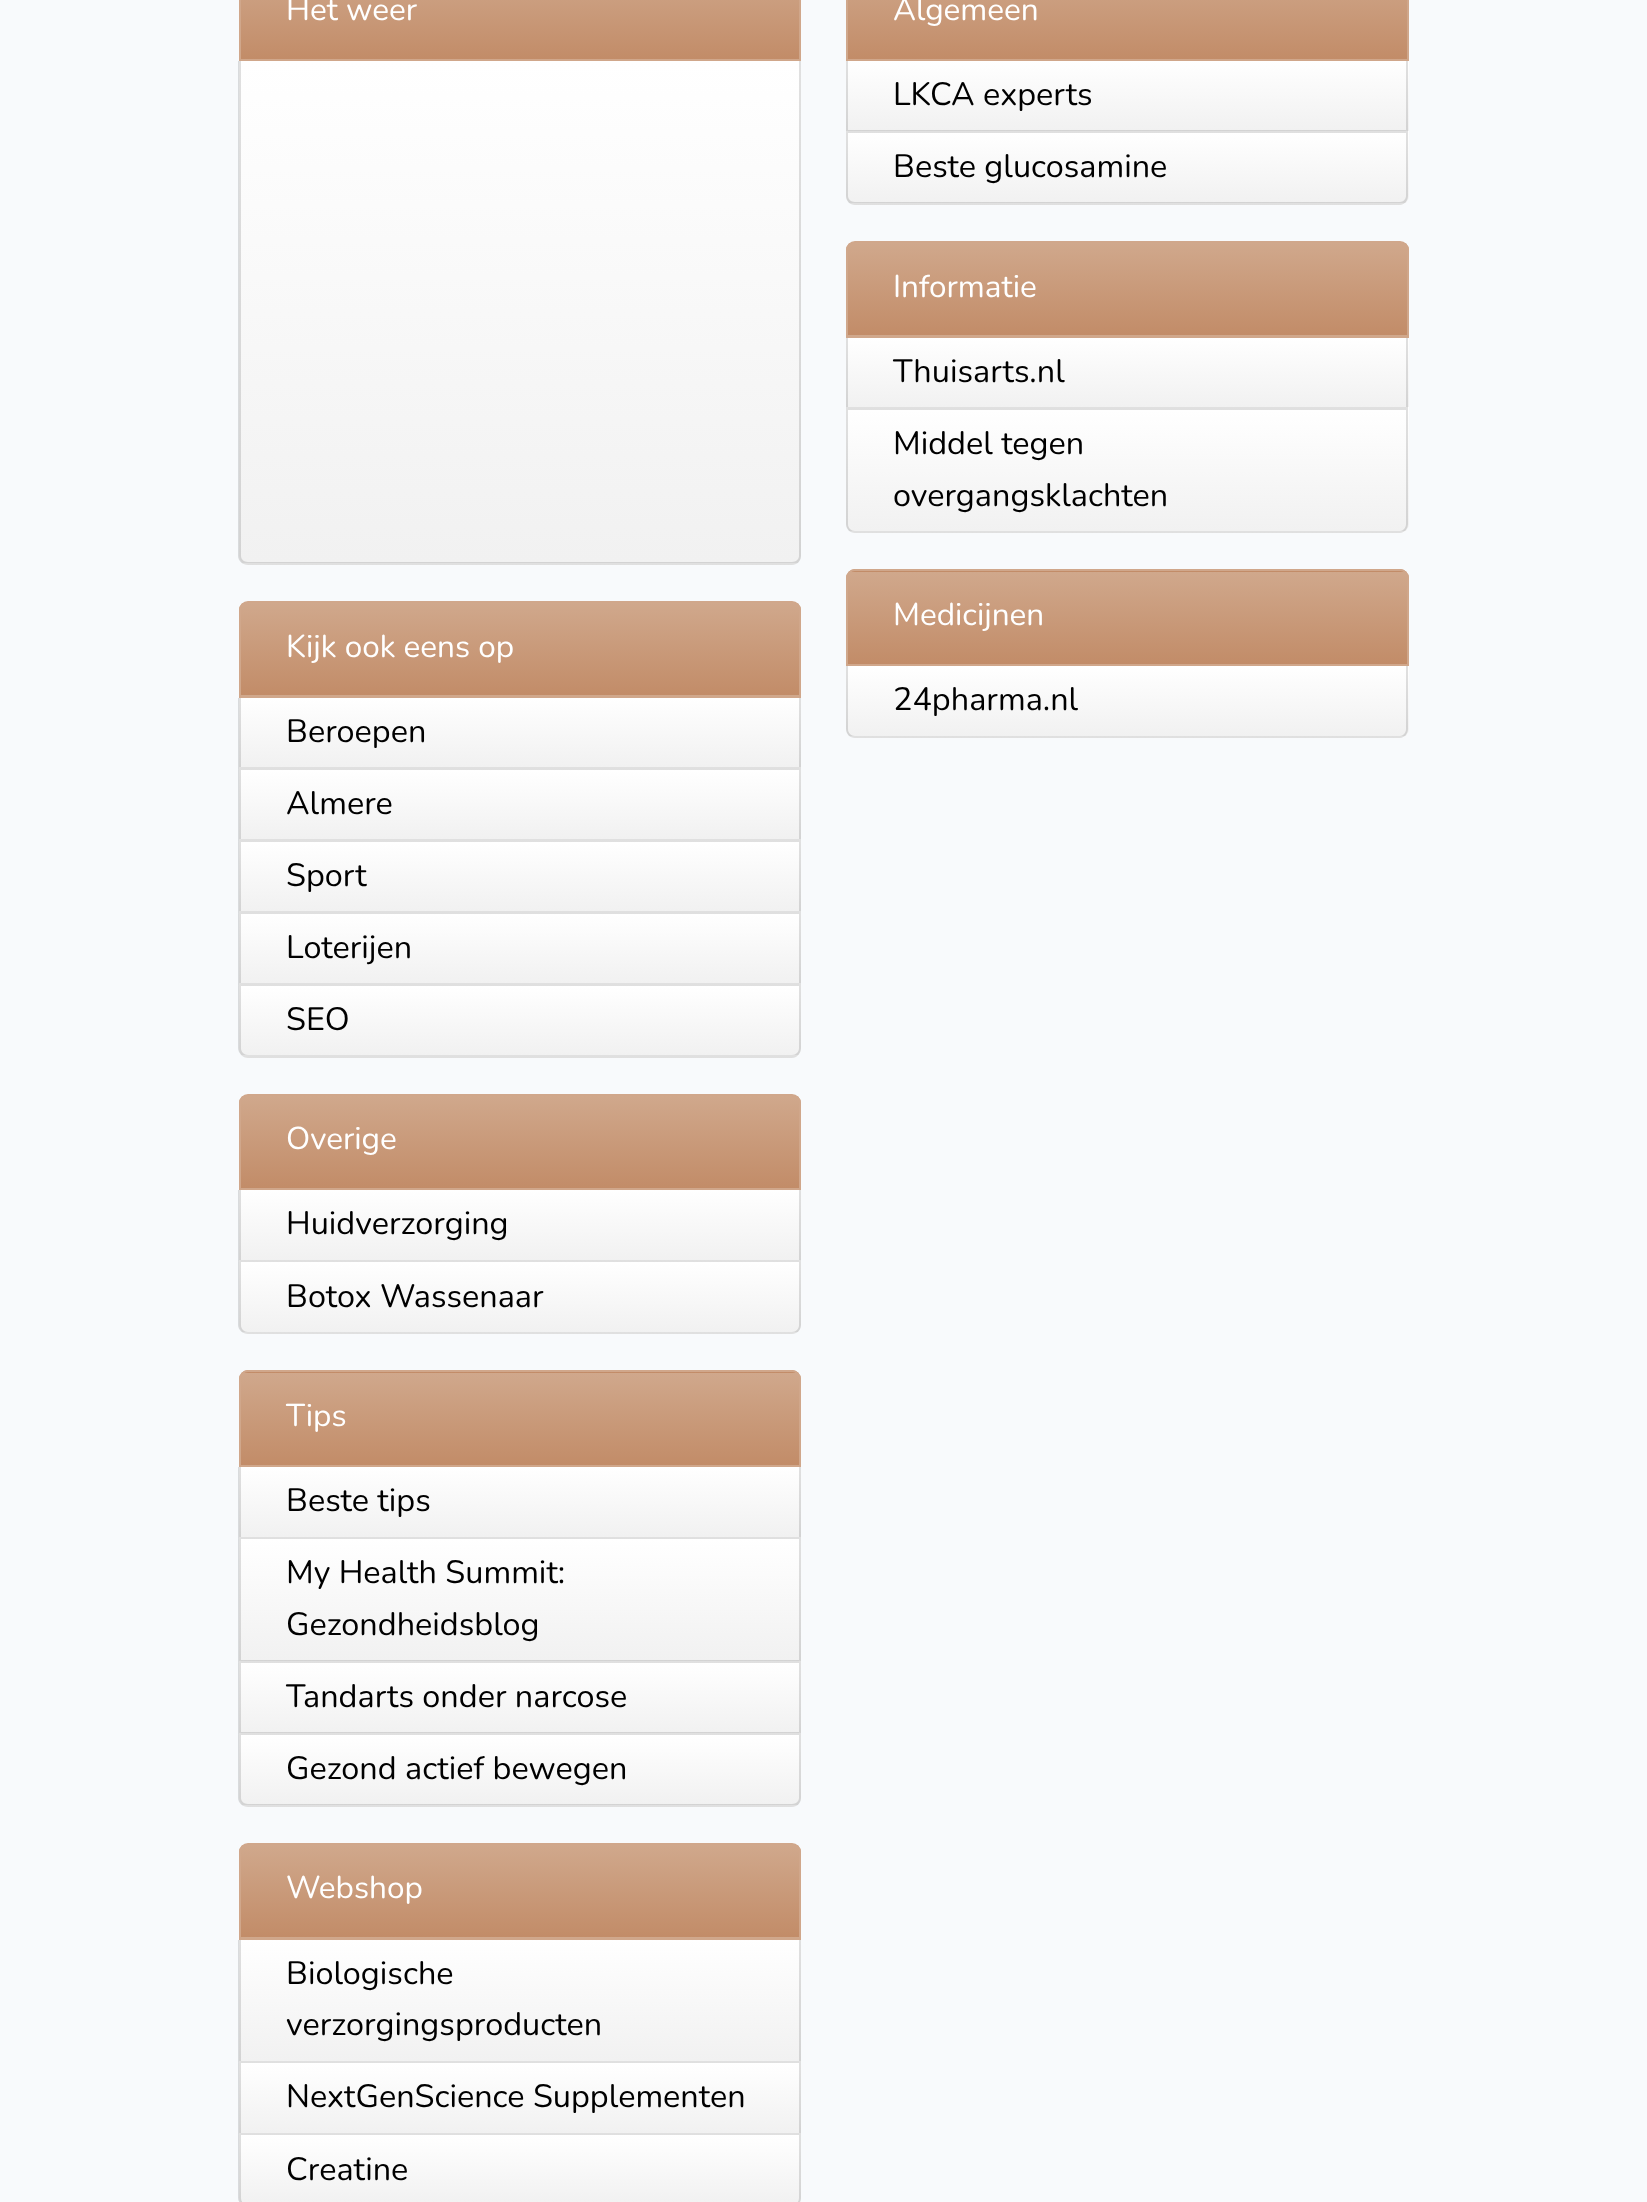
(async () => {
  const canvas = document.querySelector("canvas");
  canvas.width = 1647;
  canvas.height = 2202;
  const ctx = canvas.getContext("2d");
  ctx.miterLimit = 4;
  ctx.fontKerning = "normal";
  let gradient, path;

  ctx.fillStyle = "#f8fafc";
  ctx.fillRect(0, 0, 1647, 2202);
  gradient = ctx.createLinearGradient(520, -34, 520, 59);
  gradient.addColorStop(0, "#d0a88c");
  gradient.addColorStop(1, "#c28c68");
  ctx.fillStyle = gradient;
  ctx.fillRect(241, 0, 558, 59);
  ctx.strokeStyle = "#d0a78b";
  ctx.lineWidth = 2;
  ctx.strokeRect(240, -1, 560, 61);
  ctx.save();
  ctx.beginPath();
  ctx.roundRect(239, 61, 562, 504, [0, 0, 9, 9]);
  ctx.clip();
  gradient = ctx.createLinearGradient(520, 61, 520, 563);
  gradient.addColorStop(0, "#ffffff");
  gradient.addColorStop(1, "#f1f1f1");
  ctx.fillStyle = gradient;
  ctx.fillRect(239, 61, 562, 502);
  gradient = ctx.createLinearGradient(520, 563, 520, 1064);
  gradient.addColorStop(0, "#ffffff");
  gradient.addColorStop(1, "#f1f1f1");
  ctx.fillStyle = gradient;
  ctx.fillRect(239, 563, 562, 2);
  ctx.restore();
  ctx.fillStyle = "rgba(0, 0, 0, 0.12)";
  path = new Path2D("M238 61H801V556C801 561 797 565 792 565H248C243 565 238 561 238 556ZM241 61H799V556C799 559 796 562 792 562H248C244 562 241 559 241 556Z");
  ctx.fill(path, "evenodd");
  ctx.save();
  ctx.beginPath();
  ctx.roundRect(239, 601, 562, 97, [9, 9, 0, 0]);
  ctx.clip();
  gradient = ctx.createLinearGradient(520, 603, 520, 695);
  gradient.addColorStop(0, "#d0a88c");
  gradient.addColorStop(1, "#c28c68");
  ctx.fillStyle = gradient;
  ctx.fillRect(239, 603, 562, 92);
  ctx.restore();
  gradient = ctx.createLinearGradient(520, 695, 520, 788);
  gradient.addColorStop(0, "#d0a88c");
  gradient.addColorStop(1, "#c28c68");
  ctx.fillStyle = gradient;
  ctx.fillRect(239, 695, 562, 1);
  ctx.beginPath();
  ctx.roundRect(240, 602, 560, 95, [8, 8, 0, 0]);
  ctx.stroke();
  gradient = ctx.createLinearGradient(520, 698, 520, 767);
  gradient.addColorStop(0, "#ffffff");
  gradient.addColorStop(1, "#f1f1f1");
  ctx.fillStyle = gradient;
  ctx.fillRect(239, 698, 562, 69);
  gradient = ctx.createLinearGradient(520, 767, 520, 837);
  gradient.addColorStop(0, "#ffffff");
  gradient.addColorStop(1, "#f1f1f1");
  ctx.fillStyle = gradient;
  ctx.fillRect(239, 767, 562, 3);
  ctx.fillStyle = "rgba(0, 0, 0, 0.12)";
  path = new Path2D("M801 698V770L799 767V698Z");
  ctx.fill(path);
  path = new Path2D("M801 770H238L241 767H799Z");
  ctx.fill(path);
  path = new Path2D("M238 770V698H241V767Z");
  ctx.fill(path);
  gradient = ctx.createLinearGradient(520, 770, 520, 839);
  gradient.addColorStop(0, "#ffffff");
  gradient.addColorStop(1, "#f1f1f1");
  ctx.fillStyle = gradient;
  ctx.fillRect(239, 770, 562, 69);
  gradient = ctx.createLinearGradient(520, 839, 520, 909);
  gradient.addColorStop(0, "#ffffff");
  gradient.addColorStop(1, "#f1f1f1");
  ctx.fillStyle = gradient;
  ctx.fillRect(239, 839, 562, 3);
  ctx.fillStyle = "rgba(0, 0, 0, 0.12)";
  path = new Path2D("M801 770V842L799 839V770Z");
  ctx.fill(path);
  path = new Path2D("M801 842H238L241 839H799Z");
  ctx.fill(path);
  path = new Path2D("M238 842V770H241V839Z");
  ctx.fill(path);
  gradient = ctx.createLinearGradient(520, 842, 520, 911);
  gradient.addColorStop(0, "#ffffff");
  gradient.addColorStop(1, "#f1f1f1");
  ctx.fillStyle = gradient;
  ctx.fillRect(239, 842, 562, 69);
  gradient = ctx.createLinearGradient(520, 911, 520, 981);
  gradient.addColorStop(0, "#ffffff");
  gradient.addColorStop(1, "#f1f1f1");
  ctx.fillStyle = gradient;
  ctx.fillRect(239, 911, 562, 3);
  ctx.fillStyle = "rgba(0, 0, 0, 0.12)";
  path = new Path2D("M801 842V914L799 911V842Z");
  ctx.fill(path);
  path = new Path2D("M801 914H238L241 911H799Z");
  ctx.fill(path);
  path = new Path2D("M238 914V842H241V911Z");
  ctx.fill(path);
  gradient = ctx.createLinearGradient(520, 914, 520, 983);
  gradient.addColorStop(0, "#ffffff");
  gradient.addColorStop(1, "#f1f1f1");
  ctx.fillStyle = gradient;
  ctx.fillRect(239, 914, 562, 69);
  gradient = ctx.createLinearGradient(520, 983, 520, 1053);
  gradient.addColorStop(0, "#ffffff");
  gradient.addColorStop(1, "#f1f1f1");
  ctx.fillStyle = gradient;
  ctx.fillRect(239, 983, 562, 3);
  ctx.fillStyle = "rgba(0, 0, 0, 0.12)";
  path = new Path2D("M801 914V986L799 983V914Z");
  ctx.fill(path);
  path = new Path2D("M801 986H238L241 983H799Z");
  ctx.fill(path);
  path = new Path2D("M238 986V914H241V983Z");
  ctx.fill(path);
  ctx.save();
  ctx.beginPath();
  ctx.roundRect(239, 986, 562, 72, [0, 0, 9, 9]);
  ctx.clip();
  gradient = ctx.createLinearGradient(520, 986, 520, 1055);
  gradient.addColorStop(0, "#ffffff");
  gradient.addColorStop(1, "#f1f1f1");
  ctx.fillStyle = gradient;
  ctx.fillRect(239, 986, 562, 69);
  gradient = ctx.createLinearGradient(520, 1055, 520, 1125);
  gradient.addColorStop(0, "#ffffff");
  gradient.addColorStop(1, "#f1f1f1");
  ctx.fillStyle = gradient;
  ctx.fillRect(239, 1055, 562, 3);
  ctx.restore();
  path = new Path2D("M238 986H801V1048C801 1053 797 1058 792 1058H248C243 1058 238 1053 238 1048ZM241 986H799V1048C799 1052 796 1055 792 1055H248C244 1055 241 1052 241 1048Z");
  ctx.fill(path, "evenodd");
  gradient = ctx.createLinearGradient(1127, -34, 1127, 59);
  gradient.addColorStop(0, "#d0a88c");
  gradient.addColorStop(1, "#c28c68");
  ctx.fillStyle = gradient;
  ctx.fillRect(848, 0, 559, 59);
  ctx.strokeRect(847, -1, 561, 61);
  gradient = ctx.createLinearGradient(1127, 61, 1127, 131);
  gradient.addColorStop(0, "#ffffff");
  gradient.addColorStop(1, "#f1f1f1");
  ctx.fillStyle = gradient;
  ctx.fillRect(846, 61, 563, 70);
  gradient = ctx.createLinearGradient(1127, 130, 1127, 200);
  gradient.addColorStop(0, "#ffffff");
  gradient.addColorStop(1, "#f1f1f1");
  ctx.fillStyle = gradient;
  ctx.fillRect(846, 131, 563, 2);
  ctx.fillStyle = "rgba(0, 0, 0, 0.12)";
  path = new Path2D("M1408 61V133L1406 130V61Z");
  ctx.fill(path);
  path = new Path2D("M1408 133H846L848 130H1406Z");
  ctx.fill(path);
  path = new Path2D("M846 133V61H848V130Z");
  ctx.fill(path);
  ctx.save();
  ctx.beginPath();
  ctx.roundRect(846, 133, 563, 72, [0, 0, 9, 9]);
  ctx.clip();
  gradient = ctx.createLinearGradient(1127, 133, 1127, 203);
  gradient.addColorStop(0, "#ffffff");
  gradient.addColorStop(1, "#f1f1f1");
  ctx.fillStyle = gradient;
  ctx.fillRect(846, 133, 563, 70);
  gradient = ctx.createLinearGradient(1127, 202, 1127, 272);
  gradient.addColorStop(0, "#ffffff");
  gradient.addColorStop(1, "#f1f1f1");
  ctx.fillStyle = gradient;
  ctx.fillRect(846, 203, 563, 2);
  ctx.restore();
  path = new Path2D("M846 133H1408V196C1408 201 1404 205 1400 205H855C850 205 846 201 846 196ZM848 133H1406V196C1406 199 1403 202 1400 202H855C851 202 848 199 848 196Z");
  ctx.fill(path, "evenodd");
  ctx.save();
  ctx.beginPath();
  ctx.roundRect(846, 241, 563, 97, [9, 9, 0, 0]);
  ctx.clip();
  gradient = ctx.createLinearGradient(1127, 243, 1127, 335);
  gradient.addColorStop(0, "#d0a88c");
  gradient.addColorStop(1, "#c28c68");
  ctx.fillStyle = gradient;
  ctx.fillRect(846, 243, 563, 92);
  ctx.restore();
  gradient = ctx.createLinearGradient(1127, 335, 1127, 428);
  gradient.addColorStop(0, "#d0a88c");
  gradient.addColorStop(1, "#c28c68");
  ctx.fillStyle = gradient;
  ctx.fillRect(846, 335, 563, 1);
  ctx.beginPath();
  ctx.roundRect(847, 242, 561, 95, [8, 8, 0, 0]);
  ctx.stroke();
  gradient = ctx.createLinearGradient(1127, 337, 1127, 407);
  gradient.addColorStop(0, "#ffffff");
  gradient.addColorStop(1, "#f1f1f1");
  ctx.fillStyle = gradient;
  ctx.fillRect(846, 338, 563, 69);
  gradient = ctx.createLinearGradient(1127, 407, 1127, 477);
  gradient.addColorStop(0, "#ffffff");
  gradient.addColorStop(1, "#f1f1f1");
  ctx.fillStyle = gradient;
  ctx.fillRect(846, 407, 563, 3);
  ctx.fillStyle = "rgba(0, 0, 0, 0.12)";
  path = new Path2D("M1408 338V410L1406 407V338Z");
  ctx.fill(path);
  path = new Path2D("M1408 410H846L848 407H1406Z");
  ctx.fill(path);
  path = new Path2D("M846 410V338H848V407Z");
  ctx.fill(path);
  ctx.save();
  ctx.beginPath();
  ctx.roundRect(846, 410, 563, 123, [0, 0, 9, 9]);
  ctx.clip();
  gradient = ctx.createLinearGradient(1127, 410, 1127, 531);
  gradient.addColorStop(0, "#ffffff");
  gradient.addColorStop(1, "#f1f1f1");
  ctx.fillStyle = gradient;
  ctx.fillRect(846, 410, 563, 121);
  gradient = ctx.createLinearGradient(1127, 531, 1127, 653);
  gradient.addColorStop(0, "#ffffff");
  gradient.addColorStop(1, "#f1f1f1");
  ctx.fillStyle = gradient;
  ctx.fillRect(846, 531, 563, 2);
  ctx.restore();
  path = new Path2D("M846 410H1408V524C1408 529 1404 533 1400 533H855C850 533 846 529 846 524ZM848 410H1406V524C1406 528 1403 531 1400 531H855C851 531 848 528 848 524Z");
  ctx.fill(path, "evenodd");
  ctx.save();
  ctx.beginPath();
  ctx.roundRect(846, 569, 563, 97, [9, 9, 0, 0]);
  ctx.clip();
  gradient = ctx.createLinearGradient(1127, 479, 1127, 572);
  gradient.addColorStop(0, "#d0a88c");
  gradient.addColorStop(1, "#c28c68");
  ctx.fillStyle = gradient;
  ctx.fillRect(846, 569, 563, 3);
  gradient = ctx.createLinearGradient(1127, 572, 1127, 664);
  gradient.addColorStop(0, "#d0a88c");
  gradient.addColorStop(1, "#c28c68");
  ctx.fillStyle = gradient;
  ctx.fillRect(846, 572, 563, 92);
  ctx.restore();
  ctx.beginPath();
  ctx.roundRect(847, 570, 561, 95, [8, 8, 0, 0]);
  ctx.stroke();
  ctx.save();
  ctx.beginPath();
  ctx.roundRect(846, 666, 563, 72, [0, 0, 9, 9]);
  ctx.clip();
  gradient = ctx.createLinearGradient(1127, 666, 1127, 736);
  gradient.addColorStop(0, "#ffffff");
  gradient.addColorStop(1, "#f1f1f1");
  ctx.fillStyle = gradient;
  ctx.fillRect(846, 666, 563, 70);
  gradient = ctx.createLinearGradient(1127, 736, 1127, 806);
  gradient.addColorStop(0, "#ffffff");
  gradient.addColorStop(1, "#f1f1f1");
  ctx.fillStyle = gradient;
  ctx.fillRect(846, 736, 563, 2);
  ctx.restore();
  path = new Path2D("M846 666H1408V729C1408 734 1404 738 1400 738H855C850 738 846 734 846 729ZM848 666H1406V729C1406 733 1403 736 1400 736H855C851 736 848 733 848 729Z");
  ctx.fill(path, "evenodd");
  ctx.save();
  ctx.beginPath();
  ctx.roundRect(239, 1094, 562, 96, [9, 9, 0, 0]);
  ctx.clip();
  gradient = ctx.createLinearGradient(520, 1096, 520, 1188);
  gradient.addColorStop(0, "#d0a88c");
  gradient.addColorStop(1, "#c28c68");
  ctx.fillStyle = gradient;
  ctx.fillRect(239, 1096, 562, 92);
  ctx.restore();
  ctx.beginPath();
  ctx.roundRect(240, 1095, 560, 94, [8, 8, 0, 0]);
  ctx.stroke();
  gradient = ctx.createLinearGradient(520, 1190, 520, 1260);
  gradient.addColorStop(0, "#ffffff");
  gradient.addColorStop(1, "#f1f1f1");
  ctx.fillStyle = gradient;
  ctx.fillRect(239, 1190, 562, 70);
  gradient = ctx.createLinearGradient(520, 1260, 520, 1330);
  gradient.addColorStop(0, "#ffffff");
  gradient.addColorStop(1, "#f1f1f1");
  ctx.fillStyle = gradient;
  ctx.fillRect(239, 1260, 562, 2);
  ctx.fillStyle = "rgba(0, 0, 0, 0.12)";
  path = new Path2D("M801 1190V1262L799 1260V1190Z");
  ctx.fill(path);
  path = new Path2D("M801 1262H238L241 1260H799Z");
  ctx.fill(path);
  path = new Path2D("M238 1262V1190H241V1260Z");
  ctx.fill(path);
  ctx.save();
  ctx.beginPath();
  ctx.roundRect(239, 1262, 562, 72, [0, 0, 9, 9]);
  ctx.clip();
  gradient = ctx.createLinearGradient(520, 1262, 520, 1332);
  gradient.addColorStop(0, "#ffffff");
  gradient.addColorStop(1, "#f1f1f1");
  ctx.fillStyle = gradient;
  ctx.fillRect(239, 1262, 562, 70);
  gradient = ctx.createLinearGradient(520, 1332, 520, 1402);
  gradient.addColorStop(0, "#ffffff");
  gradient.addColorStop(1, "#f1f1f1");
  ctx.fillStyle = gradient;
  ctx.fillRect(239, 1332, 562, 2);
  ctx.restore();
  path = new Path2D("M238 1262H801V1325C801 1330 797 1334 792 1334H248C243 1334 238 1330 238 1325ZM241 1262H799V1325C799 1329 796 1332 792 1332H248C244 1332 241 1329 241 1325Z");
  ctx.fill(path, "evenodd");
  ctx.save();
  ctx.beginPath();
  ctx.roundRect(239, 1370, 562, 97, [9, 9, 0, 0]);
  ctx.clip();
  gradient = ctx.createLinearGradient(520, 1280, 520, 1373);
  gradient.addColorStop(0, "#d0a88c");
  gradient.addColorStop(1, "#c28c68");
  ctx.fillStyle = gradient;
  ctx.fillRect(239, 1370, 562, 3);
  gradient = ctx.createLinearGradient(520, 1373, 520, 1465);
  gradient.addColorStop(0, "#d0a88c");
  gradient.addColorStop(1, "#c28c68");
  ctx.fillStyle = gradient;
  ctx.fillRect(239, 1373, 562, 92);
  ctx.restore();
  ctx.beginPath();
  ctx.roundRect(240, 1371, 560, 95, [8, 8, 0, 0]);
  ctx.stroke();
  gradient = ctx.createLinearGradient(520, 1467, 520, 1537);
  gradient.addColorStop(0, "#ffffff");
  gradient.addColorStop(1, "#f1f1f1");
  ctx.fillStyle = gradient;
  ctx.fillRect(239, 1467, 562, 70);
  gradient = ctx.createLinearGradient(520, 1537, 520, 1607);
  gradient.addColorStop(0, "#ffffff");
  gradient.addColorStop(1, "#f1f1f1");
  ctx.fillStyle = gradient;
  ctx.fillRect(239, 1537, 562, 2);
  ctx.fillStyle = "rgba(0, 0, 0, 0.12)";
  path = new Path2D("M801 1467V1539L799 1537V1467Z");
  ctx.fill(path);
  path = new Path2D("M801 1539H238L241 1537H799Z");
  ctx.fill(path);
  path = new Path2D("M238 1539V1467H241V1537Z");
  ctx.fill(path);
  gradient = ctx.createLinearGradient(520, 1539, 520, 1661);
  gradient.addColorStop(0, "#ffffff");
  gradient.addColorStop(1, "#f1f1f1");
  ctx.fillStyle = gradient;
  ctx.fillRect(239, 1539, 562, 122);
  gradient = ctx.createLinearGradient(520, 1661, 520, 1782);
  gradient.addColorStop(0, "#ffffff");
  gradient.addColorStop(1, "#f1f1f1");
  ctx.fillStyle = gradient;
  ctx.fillRect(239, 1661, 562, 2);
  ctx.fillStyle = "rgba(0, 0, 0, 0.12)";
  path = new Path2D("M801 1539V1663L799 1660V1539Z");
  ctx.fill(path);
  path = new Path2D("M801 1663H238L241 1660H799Z");
  ctx.fill(path);
  path = new Path2D("M238 1663V1539H241V1660Z");
  ctx.fill(path);
  gradient = ctx.createLinearGradient(520, 1663, 520, 1733);
  gradient.addColorStop(0, "#ffffff");
  gradient.addColorStop(1, "#f1f1f1");
  ctx.fillStyle = gradient;
  ctx.fillRect(239, 1663, 562, 70);
  gradient = ctx.createLinearGradient(520, 1733, 520, 1802);
  gradient.addColorStop(0, "#ffffff");
  gradient.addColorStop(1, "#f1f1f1");
  ctx.fillStyle = gradient;
  ctx.fillRect(239, 1733, 562, 2);
  ctx.fillStyle = "rgba(0, 0, 0, 0.12)";
  path = new Path2D("M801 1663V1735L799 1732V1663Z");
  ctx.fill(path);
  path = new Path2D("M801 1735H238L241 1732H799Z");
  ctx.fill(path);
  path = new Path2D("M238 1735V1663H241V1732Z");
  ctx.fill(path);
  ctx.save();
  ctx.beginPath();
  ctx.roundRect(239, 1735, 562, 72, [0, 0, 9, 9]);
  ctx.clip();
  gradient = ctx.createLinearGradient(520, 1735, 520, 1805);
  gradient.addColorStop(0, "#ffffff");
  gradient.addColorStop(1, "#f1f1f1");
  ctx.fillStyle = gradient;
  ctx.fillRect(239, 1735, 562, 70);
  gradient = ctx.createLinearGradient(520, 1805, 520, 1874);
  gradient.addColorStop(0, "#ffffff");
  gradient.addColorStop(1, "#f1f1f1");
  ctx.fillStyle = gradient;
  ctx.fillRect(239, 1805, 562, 2);
  ctx.restore();
  path = new Path2D("M238 1735H801V1798C801 1803 797 1807 792 1807H248C243 1807 238 1803 238 1798ZM241 1735H799V1798C799 1801 796 1804 792 1804H248C244 1804 241 1801 241 1798Z");
  ctx.fill(path, "evenodd");
  ctx.save();
  ctx.beginPath();
  ctx.roundRect(239, 1843, 562, 97, [9, 9, 0, 0]);
  ctx.clip();
  gradient = ctx.createLinearGradient(520, 1845, 520, 1937);
  gradient.addColorStop(0, "#d0a88c");
  gradient.addColorStop(1, "#c28c68");
  ctx.fillStyle = gradient;
  ctx.fillRect(239, 1845, 562, 92);
  ctx.restore();
  gradient = ctx.createLinearGradient(520, 1937, 520, 2030);
  gradient.addColorStop(0, "#d0a88c");
  gradient.addColorStop(1, "#c28c68");
  ctx.fillStyle = gradient;
  ctx.fillRect(239, 1937, 562, 1);
  ctx.beginPath();
  ctx.roundRect(240, 1844, 560, 95, [8, 8, 0, 0]);
  ctx.stroke();
  gradient = ctx.createLinearGradient(520, 1940, 520, 2061);
  gradient.addColorStop(0, "#ffffff");
  gradient.addColorStop(1, "#f1f1f1");
  ctx.fillStyle = gradient;
  ctx.fillRect(239, 1940, 562, 121);
  gradient = ctx.createLinearGradient(520, 2061, 520, 2183);
  gradient.addColorStop(0, "#ffffff");
  gradient.addColorStop(1, "#f1f1f1");
  ctx.fillStyle = gradient;
  ctx.fillRect(239, 2061, 562, 2);
  ctx.fillStyle = "rgba(0, 0, 0, 0.12)";
  path = new Path2D("M801 1940V2063L799 2061V1940Z");
  ctx.fill(path);
  path = new Path2D("M801 2063H238L241 2061H799Z");
  ctx.fill(path);
  path = new Path2D("M238 2063V1940H241V2061Z");
  ctx.fill(path);
  gradient = ctx.createLinearGradient(520, 2063, 520, 2133);
  gradient.addColorStop(0, "#ffffff");
  gradient.addColorStop(1, "#f1f1f1");
  ctx.fillStyle = gradient;
  ctx.fillRect(239, 2063, 562, 70);
  gradient = ctx.createLinearGradient(520, 2133, 520, 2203);
  gradient.addColorStop(0, "#ffffff");
  gradient.addColorStop(1, "#f1f1f1");
  ctx.fillStyle = gradient;
  ctx.fillRect(239, 2133, 562, 2);
  ctx.fillStyle = "rgba(0, 0, 0, 0.12)";
  path = new Path2D("M801 2063V2135L799 2133V2063Z");
  ctx.fill(path);
  path = new Path2D("M801 2135H238L241 2133H799Z");
  ctx.fill(path);
  path = new Path2D("M238 2135V2063H241V2133Z");
  ctx.fill(path);
  ctx.save();
  path = new Path2D("M239 2135H801V2198C801 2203 797 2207 792 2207H248C243 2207 239 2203 239 2198Z");
  ctx.clip(path);
  gradient = ctx.createLinearGradient(520, 2135, 520, 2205);
  gradient.addColorStop(0, "#ffffff");
  gradient.addColorStop(1, "#f1f1f1");
  ctx.fillStyle = gradient;
  ctx.fillRect(239, 2135, 562, 67);
  ctx.restore();
  path = new Path2D("M238 2135H801V2198C801 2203 797 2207 792 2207H248C243 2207 238 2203 238 2198ZM241 2135H799V2198C799 2202 796 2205 792 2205H248C244 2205 241 2202 241 2198Z");
  ctx.fill(path, "evenodd");
  ctx.font = "200 31.5px Nunito";
  ctx.fillStyle = "#ffffff";
  ctx.fillText("Het weer", 286, 20);
  ctx.fillText("Kijk ook eens op", 286, 657);
  ctx.font = "200 32.4px Nunito";
  ctx.fillStyle = "#000000";
  for (const [text, x, y] of [
    ["Beroepen", 286, 742],
    ["Almere", 286, 814],
    ["Sport", 286, 886],
    ["Loterijen", 286, 958],
    ["SEO", 286, 1030],
  ]) {
    ctx.fillText(text, x, y);
  }
  ctx.font = "200 31.5px Nunito";
  ctx.fillStyle = "#ffffff";
  ctx.fillText("Algemeen", 893, 20);
  ctx.font = "200 32.4px Nunito";
  ctx.fillStyle = "#000000";
  ctx.fillText("LKCA experts", 893, 105);
  ctx.fillText("Beste glucosamine", 893, 177);
  ctx.font = "200 31.5px Nunito";
  ctx.fillStyle = "#ffffff";
  ctx.fillText("Informatie", 893, 297);
  ctx.font = "200 32.4px Nunito";
  ctx.fillStyle = "#000000";
  for (const [text, x, y] of [
    ["Thuisarts.nl", 893, 382],
    ["Middel tegen", 893, 454],
    ["overgangsklachten", 893, 506],
  ]) {
    ctx.fillText(text, x, y);
  }
  ctx.font = "200 31.5px Nunito";
  ctx.fillStyle = "#ffffff";
  ctx.fillText("Medicijnen", 893, 625);
  ctx.font = "200 32.4px Nunito";
  ctx.fillStyle = "#000000";
  ctx.fillText("24pharma.nl", 893, 710);
  ctx.font = "200 31.5px Nunito";
  ctx.fillStyle = "#ffffff";
  ctx.fillText("Overige", 286, 1149);
  ctx.font = "200 32.4px Nunito";
  ctx.fillStyle = "#000000";
  ctx.fillText("Huidverzorging", 286, 1234);
  ctx.fillText("Botox Wassenaar", 286, 1307);
  ctx.font = "200 31.5px Nunito";
  ctx.fillStyle = "#ffffff";
  ctx.fillText("Tips", 286, 1426);
  ctx.font = "200 32.4px Nunito";
  ctx.fillStyle = "#000000";
  for (const [text, x, y] of [
    ["Beste tips", 286, 1511],
    ["My Health Summit:", 286, 1583],
    ["Gezondheidsblog", 286, 1635],
    ["Tandarts onder narcose", 286, 1707],
    ["Gezond actief bewegen", 286, 1779],
  ]) {
    ctx.fillText(text, x, y);
  }
  ctx.font = "200 31.5px Nunito";
  ctx.fillStyle = "#ffffff";
  ctx.fillText("Webshop", 286, 1898);
  ctx.font = "200 32.4px Nunito";
  ctx.fillStyle = "#000000";
  for (const [text, x, y] of [
    ["Biologische", 286, 1984],
    ["verzorgingsproducten", 286, 2035],
    ["NextGenScience Supplementen", 286, 2107],
    ["Creatine", 286, 2180],
  ]) {
    ctx.fillText(text, x, y);
  }
})();
